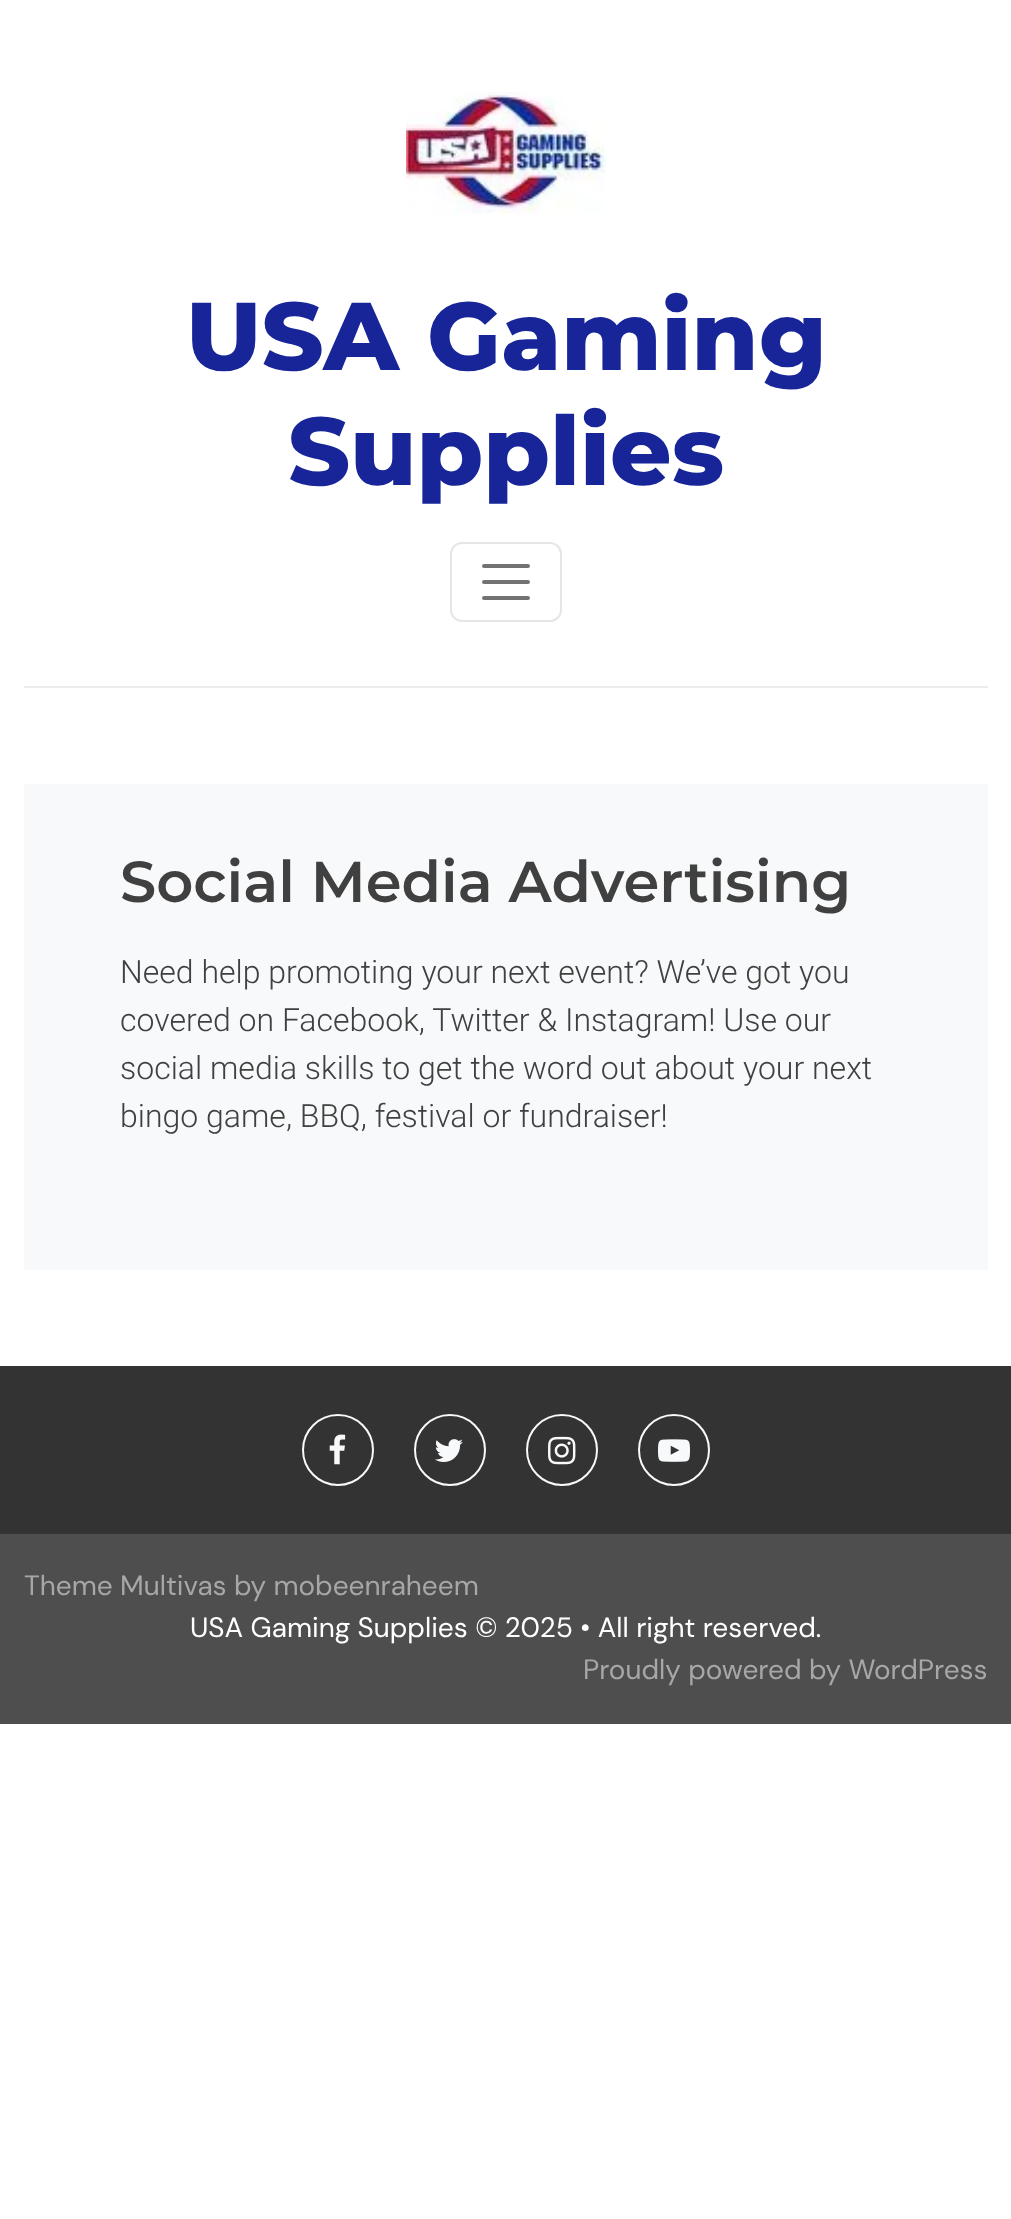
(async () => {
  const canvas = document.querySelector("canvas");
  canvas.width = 1011;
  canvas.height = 2219;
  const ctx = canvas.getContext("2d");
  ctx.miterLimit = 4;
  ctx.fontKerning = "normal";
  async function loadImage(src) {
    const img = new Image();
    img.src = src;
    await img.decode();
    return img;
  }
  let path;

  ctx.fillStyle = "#ffffff";
  ctx.fillRect(0, 0, 1011, 2219);
  ctx.fillStyle = "#edebeb";
  ctx.fillRect(24, 686, 964, 2);
  ctx.drawImage(await loadImage("img/1.png"), 406, 92, 200, 123);
  ctx.beginPath();
  ctx.roundRect(451, 543, 110, 78, 11);
  ctx.strokeStyle = "#e6e6e6";
  ctx.lineWidth = 2;
  ctx.stroke();
  path = new Path2D("M484 566H528M484 582H528M484 598H528");
  ctx.strokeStyle = "#737373";
  ctx.lineWidth = 4;
  ctx.lineCap = "round";
  ctx.stroke(path);
  ctx.fillStyle = "#f8f9fa";
  ctx.fillRect(24, 784, 964, 486);
  ctx.fillStyle = "#333333";
  ctx.fillRect(0, 1366, 1011, 168);
  ctx.beginPath();
  ctx.arc(338, 1450, 35, 0, Math.PI * 2);
  ctx.strokeStyle = "#f8f9fa";
  ctx.lineWidth = 2;
  ctx.stroke();
  ctx.drawImage(await loadImage("img/2.png"), 329, 1434, 17, 31);
  ctx.beginPath();
  ctx.arc(450, 1450, 35, 0, Math.PI * 2);
  ctx.stroke();
  ctx.drawImage(await loadImage("img/3.png"), 435, 1439, 28, 23);
  ctx.beginPath();
  ctx.arc(562, 1450, 35, 0, Math.PI * 2);
  ctx.stroke();
  ctx.drawImage(await loadImage("img/4.png"), 548, 1436, 28, 29);
  ctx.beginPath();
  ctx.arc(674, 1450, 35, 0, Math.PI * 2);
  ctx.stroke();
  ctx.drawImage(await loadImage("img/5.png"), 658, 1439, 32, 23);
  ctx.fillStyle = "#4e4e4e";
  ctx.fillRect(0, 1534, 1011, 190);
  ctx.font = "100 96px Montserrat";
  ctx.fillStyle = "#182599";
  ctx.fillText("USA Gaming", 186, 370);
  ctx.fillText("Supplies", 288, 485);
  ctx.font = "100 57.6px 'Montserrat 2'";
  ctx.fillStyle = "#404040";
  ctx.fillText("Social Media Advertising", 120, 902);
  ctx.font = "300 32px Roboto";
  for (const [text, x, y] of [
    ["Need help promoting your next event? We’ve got you", 120, 983],
    ["covered on Facebook, Twitter & Instagram! Use our", 120, 1031],
    ["social media skills to get the word out about your next", 120, 1079],
    ["bingo game, BBQ, festival or fundraiser!", 120, 1127],
  ]) {
    ctx.fillText(text, x, y);
  }
  ctx.font = "28px DM Sans";
  ctx.fillStyle = "#a7a7a7";
  ctx.fillText("Theme Multivas by mobeenraheem", 24, 1595);
  ctx.fillStyle = "#ffffff";
  ctx.fillText("USA Gaming Supplies © 2025 • All right reserved.", 190, 1637);
  ctx.fillStyle = "#a7a7a7";
  ctx.fillText("Proudly powered by WordPress", 583, 1679);
})();
